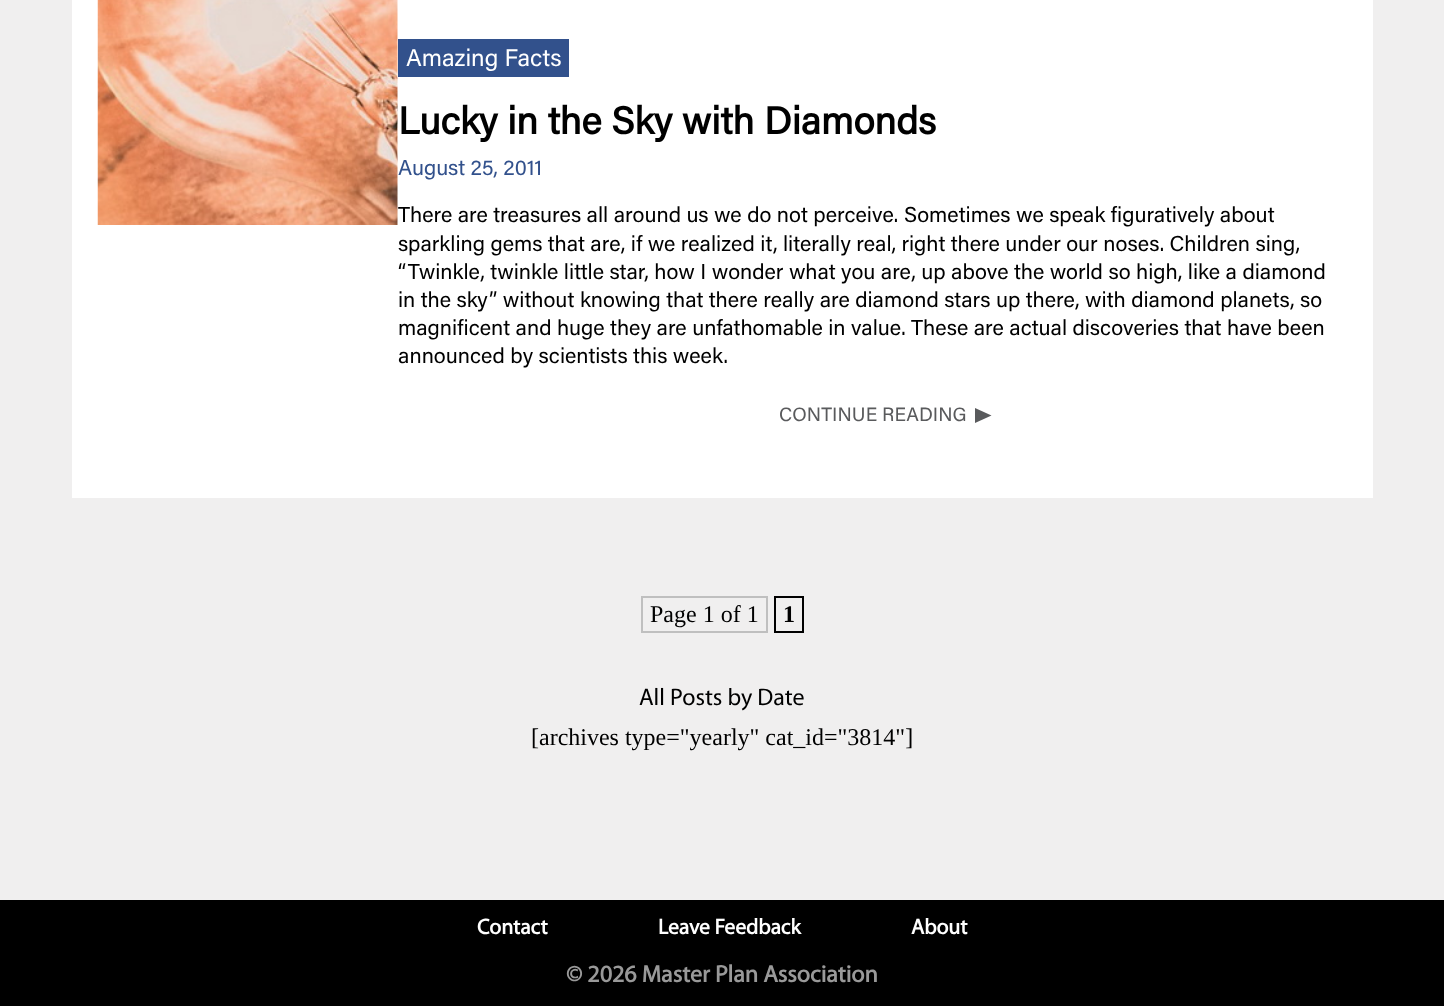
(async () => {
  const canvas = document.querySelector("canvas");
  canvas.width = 1444;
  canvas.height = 1006;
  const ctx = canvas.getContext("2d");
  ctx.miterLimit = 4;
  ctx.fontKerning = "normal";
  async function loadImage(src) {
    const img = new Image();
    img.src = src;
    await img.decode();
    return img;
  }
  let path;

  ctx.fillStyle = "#f0efef";
  ctx.fillRect(0, 0, 1444, 1006);
  ctx.fillStyle = "#ffffff";
  ctx.fillRect(72, 0, 1301, 498);
  ctx.drawImage(await loadImage("img/1.png"), 97, 0, 301, 225);
  ctx.fillStyle = "#32518c";
  ctx.fillRect(398, 39, 171, 38);
  ctx.fillStyle = "#595a5c";
  path = new Path2D("M975 423V408L991.5 415.5Z");
  ctx.fill(path);
  ctx.strokeStyle = "#bfbfbf";
  ctx.lineWidth = 2;
  ctx.strokeRect(642, 597, 125, 35);
  ctx.strokeStyle = "#000000";
  ctx.strokeRect(775, 597, 28, 35);
  ctx.fillStyle = "#000000";
  ctx.fillRect(0, 900, 1444, 106);
  ctx.font = "24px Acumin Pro";
  ctx.fillStyle = "#ffffff";
  ctx.fillText("Amazing Facts", 406, 66);
  ctx.font = "bold 38.4px Acumin Pro";
  ctx.fillStyle = "#000000";
  ctx.fillText("Lucky in the Sky with Diamonds", 398, 134);
  ctx.font = "21.6px Acumin Pro";
  ctx.fillStyle = "#32518c";
  ctx.fillText("August 25, 2011", 398, 175);
  ctx.fillStyle = "#000000";
  for (const [text, x, y] of [
    ["There are treasures all around us we do not perceive.", 398, 222],
    ["Sometimes we speak figuratively about", 904, 222],
    ["sparkling gems that are, if we realized it, literally real, right there under our noses. Children sing,", 398, 251],
    ["“Twinkle, twinkle little star, how I wonder what you are, up above the world so high, like a diamond", 398, 279],
    ["in the sky” without knowing that there really are diamond stars up there, with diamond planets, so", 398, 307],
    ["magnificent and huge they are unfathomable in value.", 398, 335],
    ["These are actual discoveries that have been", 911, 335],
    ["announced by scientists this week.", 398, 363],
  ]) {
    ctx.fillText(text, x, y);
  }
  ctx.font = "19.25px Acumin Pro";
  ctx.fillStyle = "#595a5c";
  ctx.fillText("CONTINUE READING", 779, 421);
  ctx.font = "24px Liberation Serif";
  ctx.fillStyle = "#000000";
  ctx.fillText("Page 1 of 1", 650, 622);
  ctx.font = "bold 24px Liberation Serif";
  ctx.fillText("1", 783, 622);
  ctx.font = "24px Myriad";
  ctx.fillText("All Posts by Date", 639, 705);
  ctx.font = "24px Liberation Serif";
  ctx.fillText("[archives type=\"yearly\" cat_id=\"3814\"]", 531, 745);
  ctx.font = "bold 21.6px Myriad";
  ctx.fillStyle = "#ffffff";
  for (const [text, x, y] of [
    ["Contact", 477, 934],
    ["Leave Feedback", 658, 934],
    ["About", 911, 934],
  ]) {
    ctx.fillText(text, x, y);
  }
  ctx.font = "bold 24px Myriad";
  ctx.fillStyle = "#999999";
  ctx.fillText("© 2026 Master Plan Association", 566, 982);
})();
